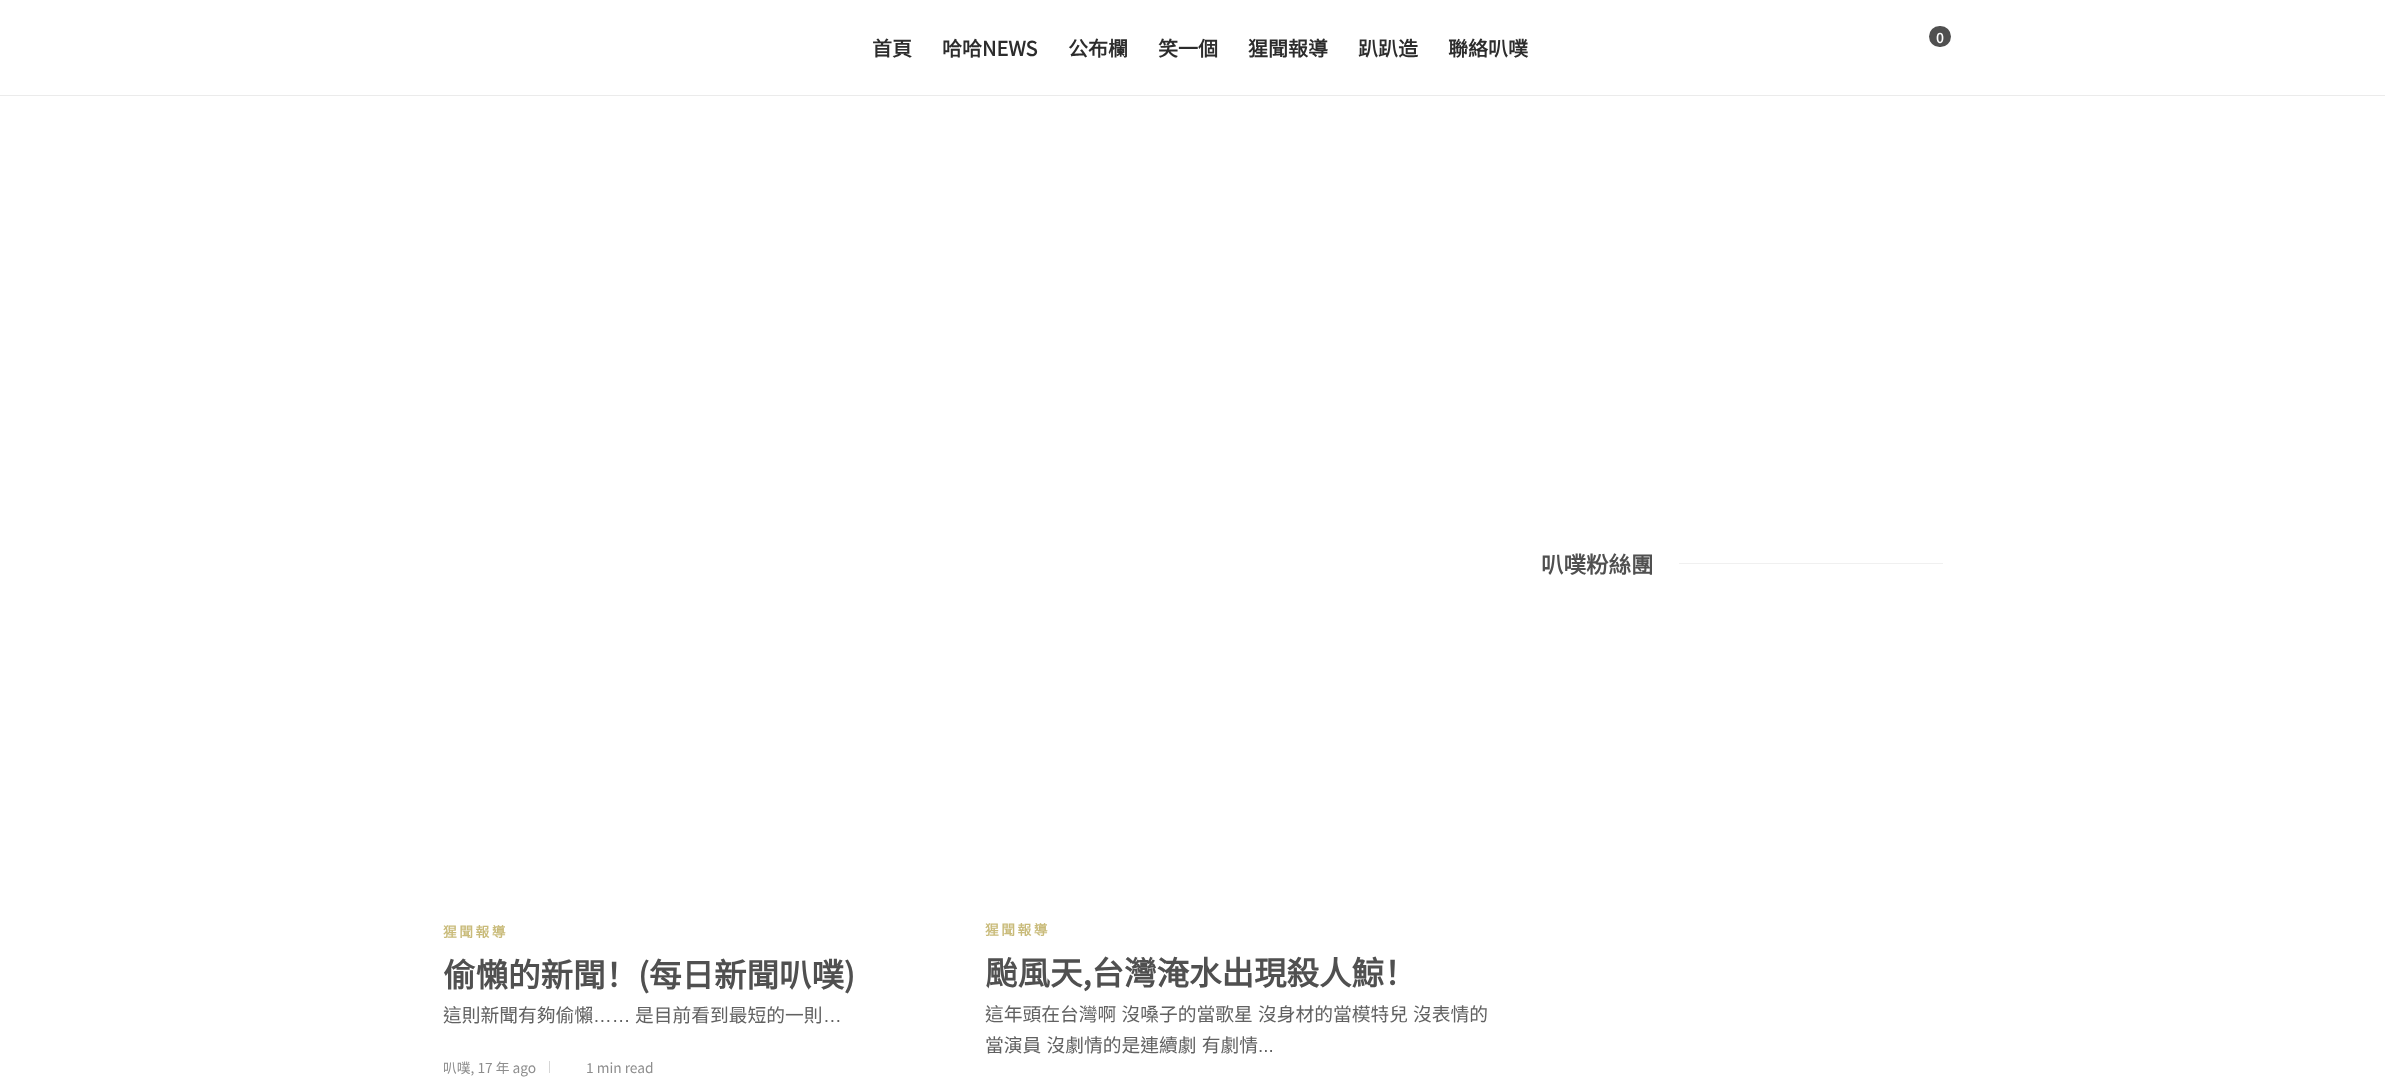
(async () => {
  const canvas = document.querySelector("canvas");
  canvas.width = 2385;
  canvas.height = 1080;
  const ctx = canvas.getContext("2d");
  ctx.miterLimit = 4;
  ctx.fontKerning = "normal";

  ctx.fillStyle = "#ffffff";
  ctx.fillRect(0, 0, 2385, 1080);
  ctx.fillStyle = "#ebebeb";
  ctx.fillRect(0, 95, 2385, 1);
  ctx.fillStyle = "#505050";
  ctx.beginPath();
  ctx.roundRect(1927.5, 24.5, 25, 24, 12);
  ctx.fill();
  ctx.strokeStyle = "#ffffff";
  ctx.lineWidth = 3;
  ctx.stroke();
  ctx.fillStyle = "#f0f0f0";
  ctx.fillRect(1679, 563, 264, 1);
  ctx.fillStyle = "#d6d6d6";
  ctx.fillRect(549, 1061, 1, 12);
  ctx.font = "bold 20px Noto Sans SC";
  ctx.fillStyle = "#2c2c2c";
  for (const [text, x, y] of [
    ["首頁", 872, 56],
    ["哈哈NEWS", 942, 56],
    ["公布欄", 1068, 56],
    ["笑一個", 1158, 56],
    ["猩聞報導", 1248, 56],
    ["趴趴造", 1358, 56],
    ["聯絡叭噗", 1448, 56],
  ]) {
    ctx.fillText(text, x, y);
  }
  ctx.font = "bold 13.75px Noto Sans SC";
  ctx.fillStyle = "#ffffff";
  ctx.fillText("0", 1936, 43);
  ctx.font = "bold 22.5px Noto Sans SC";
  ctx.fillStyle = "#505050";
  ctx.fillText("叭噗粉絲團", 1541, 573);
  ctx.letterSpacing = "2.5px";
  ctx.font = "bold 13.75px Noto Sans TC";
  ctx.fillStyle = "#c9bb7a";
  ctx.fillText("猩聞報導", 443, 937);
  ctx.letterSpacing = "0px";
  ctx.font = "bold 32.5px Noto Sans SC";
  ctx.fillStyle = "#505050";
  ctx.fillText("偷懶的新聞！(每日新聞叭噗)", 443, 987);
  ctx.font = "18.75px Noto Sans CJK TC";
  ctx.fillStyle = "#616161";
  ctx.fillText("這則新聞有夠偷懶", 443, 1022);
  ctx.font = "18.75px Liberation Sans";
  ctx.fillText("……", 593, 1022);
  ctx.font = "18.75px Noto Sans CJK TC";
  ctx.fillText("是目前看到最短的一則", 635, 1022);
  ctx.font = "18.75px Liberation Sans";
  ctx.fillText("…", 823, 1022);
  ctx.font = "100 13.75px Noto Sans SC";
  ctx.fillStyle = "#8d8d8d";
  ctx.fillText("叭噗, 17 年 ago", 443, 1073);
  ctx.fillText("1 min read", 586, 1073);
  ctx.letterSpacing = "2.5px";
  ctx.font = "bold 13.75px Noto Sans TC";
  ctx.fillStyle = "#c9bb7a";
  ctx.fillText("猩聞報導", 985, 935);
  ctx.letterSpacing = "0px";
  ctx.font = "bold 32.5px Noto Sans SC";
  ctx.fillStyle = "#505050";
  ctx.fillText("颱風天,台灣淹水出現殺人鯨！", 985, 985);
  ctx.wordSpacing = "1px";
  ctx.font = "18.75px Noto Sans CJK TC";
  ctx.fillStyle = "#616161";
  ctx.fillText("這年頭在台灣啊 沒嗓子的當歌星 沒身材的當模特兒 沒表情的", 985, 1021);
  ctx.fillText("當演員 沒劇情的是連續劇 有劇情", 985, 1052);
  ctx.wordSpacing = "0px";
  ctx.font = "18.75px Liberation Sans";
  ctx.fillText("...", 1258, 1052);
})();
